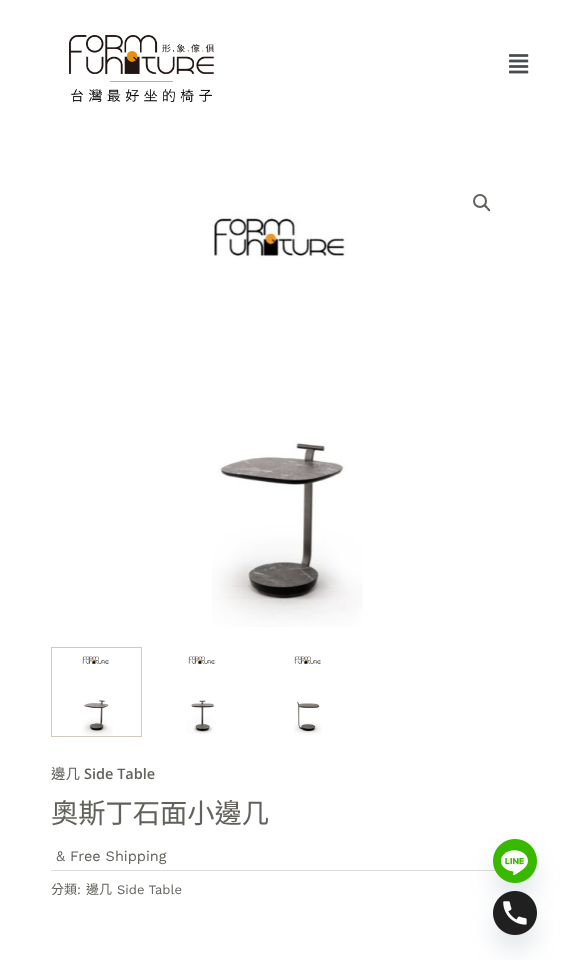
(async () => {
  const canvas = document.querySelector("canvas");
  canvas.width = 566;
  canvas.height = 960;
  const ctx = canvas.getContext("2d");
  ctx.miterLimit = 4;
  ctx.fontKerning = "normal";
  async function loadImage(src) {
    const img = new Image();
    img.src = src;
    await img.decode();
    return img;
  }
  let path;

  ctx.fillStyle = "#ffffff";
  ctx.fillRect(0, 0, 566, 960);
  ctx.drawImage(await loadImage("img/1.png"), 69, 35, 145, 67);
  ctx.drawImage(await loadImage("img/2.png"), 509, 54, 20, 20);
  ctx.beginPath();
  ctx.arc(480, 201, 6, 0, Math.PI * 2);
  ctx.strokeStyle = "#62615c";
  ctx.lineWidth = 2;
  ctx.stroke();
  ctx.fillStyle = "#62615c";
  path = new Path2D("M484.5 205C485.5 204 487.5 206.5 488 207.5C488.5 208 491 209.5 490 211C489 212 487 209.5 486.5 208.5C486 208 483 206.5 484.5 205Z");
  ctx.fill(path);
  ctx.drawImage(await loadImage("img/3.png"), 212, 213, 151, 414);
  ctx.drawImage(await loadImage("img/4.png"), 82, 656, 31, 80);
  ctx.strokeStyle = "#d0c9be";
  ctx.lineWidth = 1;
  ctx.strokeRect(51.5, 647.5, 90, 89);
  ctx.drawImage(await loadImage("img/5.png"), 187, 656, 28, 78);
  ctx.drawImage(await loadImage("img/6.png"), 294, 656, 28, 79);
  ctx.fillStyle = "#dddddd";
  ctx.fillRect(51, 870, 445, 1);
  ctx.fillStyle = "rgba(73, 104, 126, 0.16)";
  ctx.filter = "blur(12px)";
  ctx.beginPath();
  ctx.roundRect(493, 855, 44, 44, 22);
  ctx.fill();
  ctx.filter = "none";
  ctx.drawImage(await loadImage("img/7.png"), 493, 839, 44, 44);
  ctx.filter = "blur(12px)";
  ctx.beginPath();
  ctx.roundRect(493, 907, 44, 44, 22);
  ctx.fill();
  ctx.filter = "none";
  ctx.drawImage(await loadImage("img/8.png"), 493, 891, 44, 44);
  ctx.font = "14.5px Noto Sans CJK TC";
  ctx.fillStyle = "#62615c";
  ctx.fillText("邊几", 51, 779);
  ctx.font = "600 14.5px Open Sans";
  ctx.fillText("Side Table", 84, 779);
  ctx.font = "27.25px Noto Sans CJK TC";
  ctx.fillText("奧斯丁石面小邊几", 51, 823);
  ctx.font = "14.5px Work Sans";
  ctx.fillText("& Free Shipping", 56, 861);
  ctx.font = "13px Noto Sans CJK TC";
  ctx.fillText("分類", 51, 894);
  ctx.font = "13px Work Sans";
  ctx.fillText(":", 77, 894);
  ctx.font = "13px Noto Sans CJK TC";
  ctx.fillText("邊几", 86, 894);
  ctx.font = "13px Work Sans";
  ctx.fillText("Side Table", 117, 894);
})();
